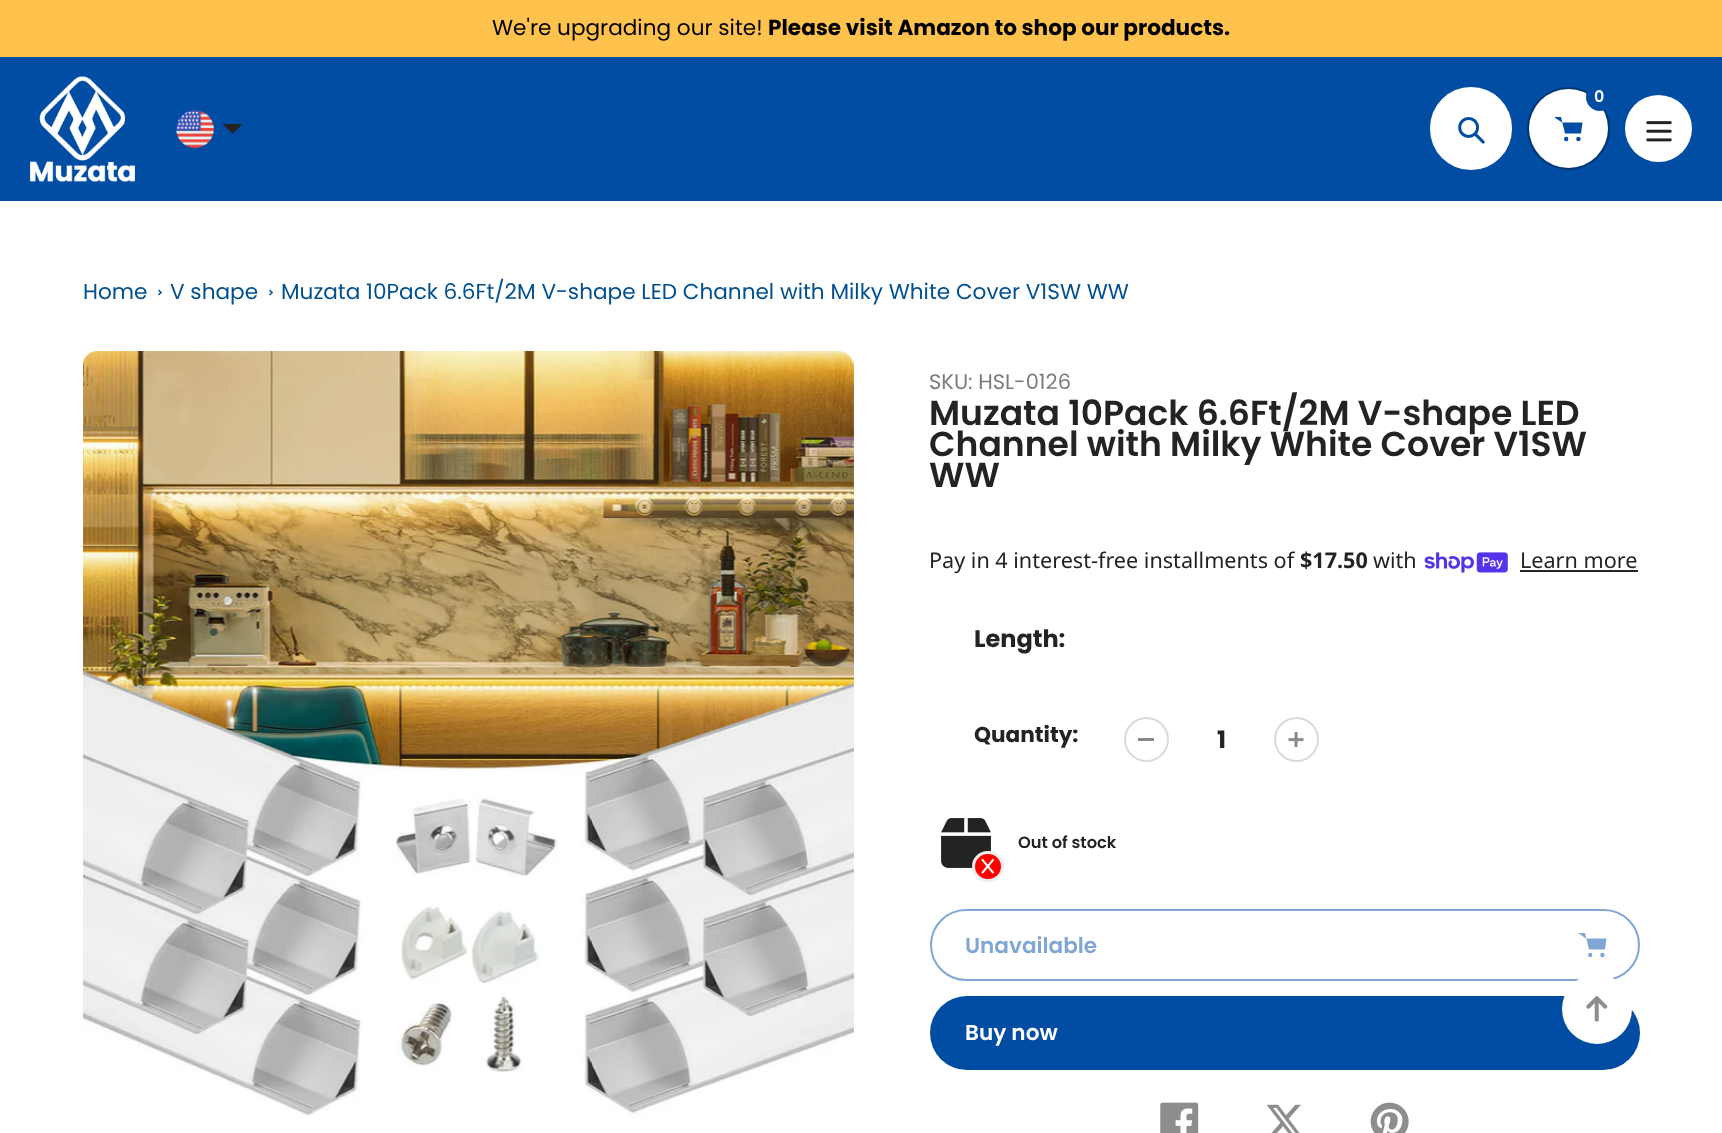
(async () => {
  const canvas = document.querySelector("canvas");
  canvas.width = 1722;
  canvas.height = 1133;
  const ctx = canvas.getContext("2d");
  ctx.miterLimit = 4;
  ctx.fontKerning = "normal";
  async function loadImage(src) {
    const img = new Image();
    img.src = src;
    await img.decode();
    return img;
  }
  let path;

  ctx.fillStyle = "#ffffff";
  ctx.fillRect(0, 0, 1722, 1133);
  ctx.fillStyle = "#ffc24d";
  ctx.fillRect(0, 0, 1722, 57);
  ctx.fillStyle = "#004da3";
  ctx.fillRect(0, 57, 1722, 144);
  ctx.drawImage(await loadImage("img/1.png"), 30, 76, 105, 106);
  ctx.drawImage(await loadImage("img/2.png"), 176, 110, 38, 38);
  ctx.fillStyle = "#232323";
  path = new Path2D("M242.5 124L232.5 134L222.5 124");
  ctx.fill(path);
  ctx.fillStyle = "#ffffff";
  ctx.beginPath();
  ctx.roundRect(1430, 87, 82, 83, 41);
  ctx.fill();
  ctx.drawImage(await loadImage("img/3.png"), 1458, 117, 27, 27);
  ctx.fillStyle = "#003573";
  ctx.beginPath();
  ctx.arc(1568.5, 128.5, 41.5, 0, Math.PI * 2);
  ctx.fill();
  ctx.fillStyle = "#ffffff";
  ctx.beginPath();
  ctx.arc(1568.5, 128.5, 39.5, 0, Math.PI * 2);
  ctx.fill();
  ctx.fillStyle = "#004da3";
  ctx.beginPath();
  ctx.arc(1600, 97, 14, 0, Math.PI * 2);
  ctx.fill();
  ctx.fillStyle = "#004da6";
  ctx.beginPath();
  ctx.arc(1566.2, 139, 2.2, 0, Math.PI * 2);
  ctx.fill();
  ctx.beginPath();
  ctx.arc(1578.4, 139, 2.2, 0, Math.PI * 2);
  ctx.fill();
  path = new Path2D("M1562 122.5H1582.5L1581 133.5H1565L1561 117H1554");
  ctx.fill(path, "evenodd");
  ctx.fillStyle = "#ffffff";
  ctx.beginPath();
  ctx.arc(1658.5, 128.5, 33.5, 0, Math.PI * 2);
  ctx.fill();
  ctx.drawImage(await loadImage("img/4.png"), 1646, 121, 26, 21);
  ctx.fillStyle = "#005091";
  path = new Path2D("M159 289.5L162 292.5L161 293.5L158 290.5Z");
  ctx.fill(path);
  path = new Path2D("M161 291.5L162 292.5L159 295.5L158 294.5Z");
  ctx.fill(path);
  path = new Path2D("M270 289.5L273 292.5L272 293.5L269 290.5Z");
  ctx.fill(path);
  path = new Path2D("M272 291.5L273 292.5L270 295.5L269 294.5Z");
  ctx.fill(path);
  ctx.drawImage(await loadImage("img/5.png"), 83, 351, 771, 765);
  ctx.drawImage(await loadImage("img/6.png"), 1424, 552, 84, 21);
  ctx.fillStyle = "#232323";
  ctx.fillRect(1520, 570, 118, 2);
  ctx.fillStyle = "#898989";
  ctx.fillRect(1138, 738, 16, 3);
  ctx.beginPath();
  ctx.arc(1146.5, 739.5, 21.5, 0, Math.PI * 2);
  ctx.strokeStyle = "#d7dbdb";
  ctx.lineWidth = 2;
  ctx.stroke();
  ctx.drawImage(await loadImage("img/7.png"), 1288, 732, 16, 15);
  ctx.beginPath();
  ctx.arc(1296.5, 739.5, 21.5, 0, Math.PI * 2);
  ctx.stroke();
  ctx.drawImage(await loadImage("img/8.png"), 941, 818, 50, 50);
  ctx.fillStyle = "#ff0000";
  ctx.beginPath();
  ctx.roundRect(973.5, 852.5, 29, 28, 14);
  ctx.fill();
  ctx.strokeStyle = "#ededed";
  ctx.lineWidth = 3;
  ctx.stroke();
  ctx.drawImage(await loadImage("img/9.png"), 981, 859, 13, 15);
  ctx.beginPath();
  ctx.roundRect(931, 910, 708, 70, 35);
  ctx.strokeStyle = "#80a6d3";
  ctx.lineWidth = 2;
  ctx.stroke();
  ctx.fillStyle = "#80a6d3";
  ctx.beginPath();
  ctx.arc(1590.2, 955, 2.2, 0, Math.PI * 2);
  ctx.fill();
  ctx.beginPath();
  ctx.arc(1602.4, 955, 2.2, 0, Math.PI * 2);
  ctx.fill();
  path = new Path2D("M1586 938.5H1606.5L1605 949.5H1589L1585 933H1578");
  ctx.fill(path, "evenodd");
  ctx.fillStyle = "#004da3";
  ctx.beginPath();
  ctx.roundRect(930, 996, 710, 74, 37);
  ctx.fill();
  ctx.drawImage(await loadImage("img/10.png"), 1160, 1102, 39, 31);
  ctx.drawImage(await loadImage("img/11.png"), 1266, 1104, 35, 29);
  ctx.drawImage(await loadImage("img/12.png"), 1370, 1102, 39, 31);
  ctx.fillStyle = "#ffffff";
  ctx.beginPath();
  ctx.arc(1597, 1009, 35, 0, Math.PI * 2);
  ctx.fill();
  ctx.drawImage(await loadImage("img/13.png"), 1586, 996, 22, 26);
  ctx.font = "21.6px Poppins";
  ctx.fillStyle = "#000000";
  ctx.fillText("We're upgrading our site!", 492, 35);
  ctx.font = "bold 21.6px Poppins";
  ctx.fillText("Please visit Amazon to shop our products.", 768, 35);
  ctx.font = "600 16px Poppins";
  ctx.fillStyle = "#ffffff";
  ctx.fillText("0", 1594, 102);
  ctx.font = "21.6px Poppins";
  ctx.fillStyle = "#005091";
  for (const [text, x, y] of [
    ["Home", 83, 299],
    ["V shape", 170, 299],
    ["Muzata 10Pack 6.6Ft/2M V-shape LED Channel with Milky White Cover V1SW WW", 281, 299],
  ]) {
    ctx.fillText(text, x, y);
  }
  ctx.font = "21px Poppins";
  ctx.fillStyle = "#7b7b7b";
  ctx.fillText("SKU: HSL-0126", 929, 389);
  ctx.font = "600 34.6px Poppins";
  ctx.fillStyle = "#232323";
  for (const [text, x, y] of [
    ["Muzata 10Pack 6.6Ft/2M V-shape LED", 929, 425],
    ["Channel with Milky White Cover V1SW", 929, 456],
    ["WW", 929, 487],
  ]) {
    ctx.fillText(text, x, y);
  }
  ctx.font = "21.6px Noto Sans";
  ctx.fillText("Pay in 4 interest-free installments of", 929, 568);
  ctx.font = "bold 21.6px Noto Sans";
  ctx.fillText("$17.50", 1300, 568);
  ctx.font = "21.6px Noto Sans";
  ctx.fillText("with", 1373, 568);
  ctx.fillText("Learn more", 1520, 568);
  ctx.font = "bold 24px Poppins";
  ctx.fillText("Length:", 974, 647);
  ctx.font = "bold 21.6px Poppins";
  ctx.fillText("Quantity:", 974, 742);
  ctx.font = "bold 24px Poppins";
  ctx.fillText("1", 1217, 748);
  ctx.font = "600 16.25px Poppins";
  ctx.fillText("Out of stock", 1018, 848);
  ctx.font = "600 21.6px Poppins";
  ctx.fillStyle = "#80a6d3";
  ctx.fillText("Unavailable", 965, 953);
  ctx.fillStyle = "#ffffff";
  ctx.fillText("Buy now", 965, 1040);
})();
